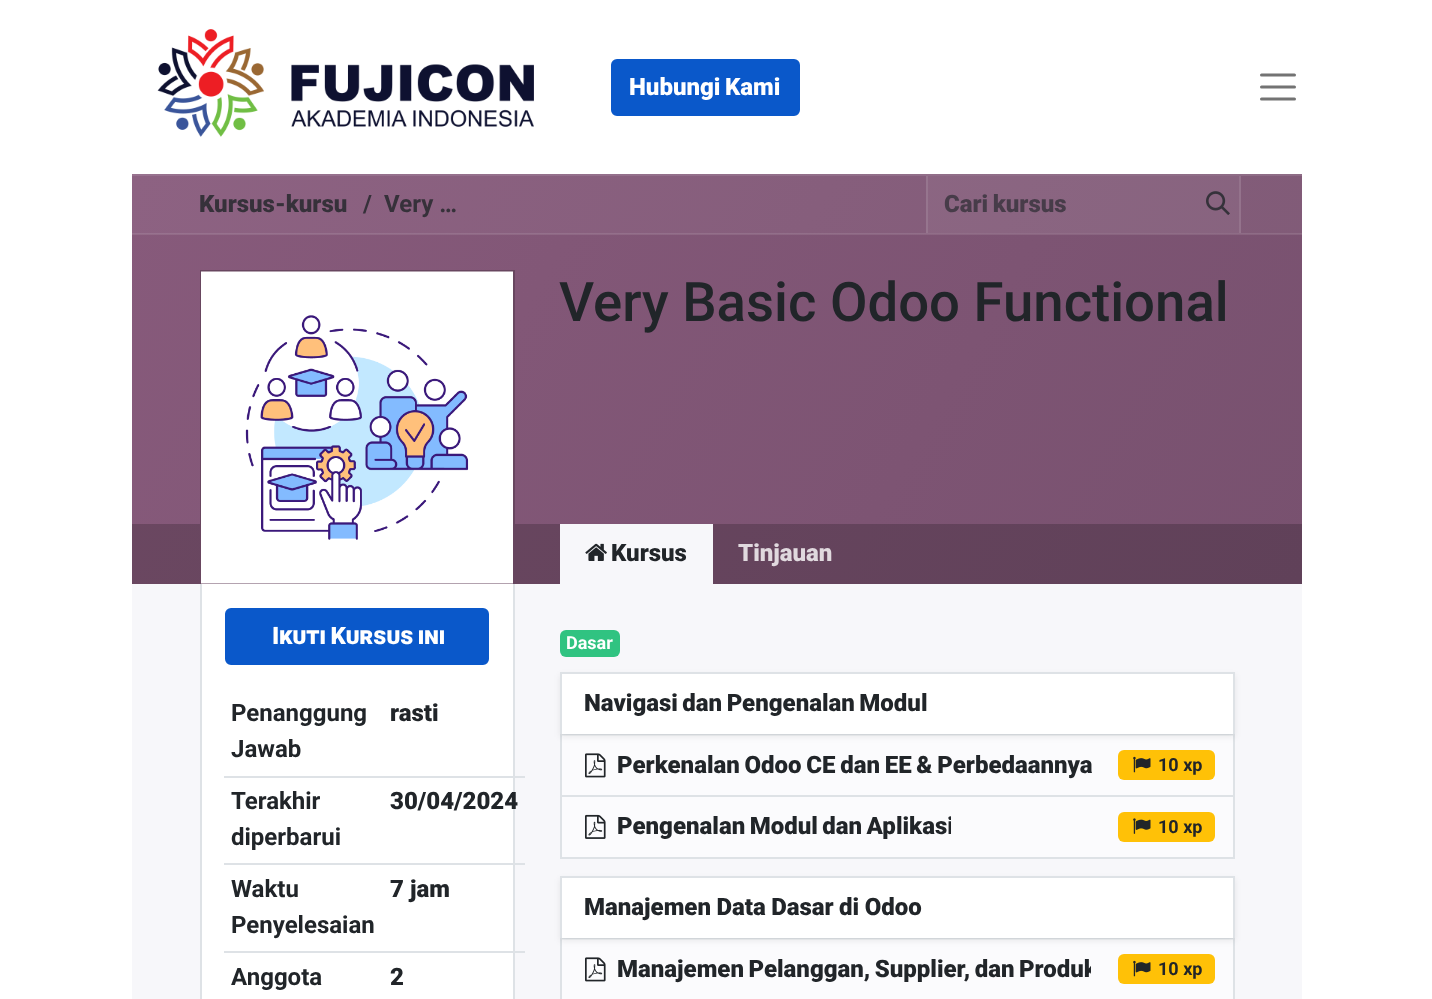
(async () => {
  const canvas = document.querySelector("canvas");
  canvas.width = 1432;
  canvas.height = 999;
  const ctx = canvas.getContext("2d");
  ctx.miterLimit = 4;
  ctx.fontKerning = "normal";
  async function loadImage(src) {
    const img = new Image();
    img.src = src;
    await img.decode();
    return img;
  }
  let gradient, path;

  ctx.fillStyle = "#ffffff";
  ctx.fillRect(0, 0, 1432, 999);
  ctx.drawImage(await loadImage("img/1.png"), 157, 29, 377, 108);
  ctx.fillStyle = "#0a58ca";
  ctx.beginPath();
  ctx.roundRect(612, 60, 187, 55, 5);
  ctx.fill();
  ctx.strokeStyle = "#0a58ca";
  ctx.lineWidth = 2;
  ctx.stroke();
  path = new Path2D("M1261.5 75H1294.5M1261.5 87H1294.5M1261.5 99H1294.5");
  ctx.strokeStyle = "#737373";
  ctx.lineWidth = 3;
  ctx.lineCap = "round";
  ctx.stroke(path);
  for (const [x, y, w, h, color] of [
    [132, 584, 1170, 415, "#f7f7fa"],
    [562, 940, 671, 59, "#fbfbfd"],
    [562, 736, 671, 59, "#fbfbfd"],
  ]) {
    ctx.fillStyle = color;
    ctx.fillRect(x, y, w, h);
  }
  gradient = ctx.createLinearGradient(190, 74, 1244, 683);
  gradient.addColorStop(0, "#875a7b");
  gradient.addColorStop(1, "#78516f");
  ctx.fillStyle = gradient;
  ctx.fillRect(132, 235, 1170, 289);
  gradient = ctx.createLinearGradient(190, 74, 1244, 683);
  gradient.addColorStop(0, "#936b88");
  gradient.addColorStop(1, "#86627d");
  ctx.fillStyle = gradient;
  ctx.fillRect(132, 234, 1170, 1);
  gradient = ctx.createLinearGradient(190, 74, 1244, 683);
  gradient.addColorStop(0, "#8d6282");
  gradient.addColorStop(1, "#7f5a76");
  ctx.fillStyle = gradient;
  ctx.fillRect(132, 176, 1170, 57);
  gradient = ctx.createLinearGradient(190, 74, 1244, 683);
  gradient.addColorStop(0, "#936a88");
  gradient.addColorStop(1, "#85627d");
  ctx.fillStyle = gradient;
  ctx.fillRect(928, 176, 311, 57);
  gradient = ctx.createLinearGradient(190, 74, 1244, 683);
  gradient.addColorStop(0, "#98728f");
  gradient.addColorStop(1, "#8c6b84");
  ctx.fillStyle = gradient;
  ctx.fillRect(132, 233, 1170, 1);
  ctx.fillRect(132, 174, 1170, 2);
  gradient = ctx.createLinearGradient(190, 74, 1244, 683);
  gradient.addColorStop(0, "#6c4862");
  gradient.addColorStop(1, "#604159");
  ctx.fillStyle = gradient;
  ctx.fillRect(132, 524, 1170, 60);
  ctx.fillStyle = "#94738c";
  ctx.fillRect(1239, 176, 2, 57);
  ctx.fillStyle = "#96758e";
  ctx.fillRect(926, 176, 2, 57);
  ctx.drawImage(await loadImage("img/2.png"), 1206, 191, 24, 24);
  for (const [x, y, w, h, color] of [
    [200, 270, 315, 2, "#68465f"],
    [513, 270, 2, 254, "#68465f"],
    [200, 270, 2, 254, "#68465f"],
  ]) {
    ctx.fillStyle = color;
    ctx.fillRect(x, y, w, h);
  }
  ctx.drawImage(await loadImage("img/3.png"), 201, 271, 312, 313);
  for (const [x, y, w, h, color] of [
    [202, 584, 311, 415, "#ffffff"],
    [513, 584, 2, 415, "#dee2e6"],
    [200, 584, 2, 415, "#dee2e6"],
  ]) {
    ctx.fillStyle = color;
    ctx.fillRect(x, y, w, h);
  }
  ctx.fillStyle = "#0a58ca";
  ctx.beginPath();
  ctx.roundRect(226, 609, 262, 55, 5);
  ctx.fill();
  ctx.strokeStyle = "#0a58ca";
  ctx.lineWidth = 2;
  ctx.stroke();
  for (const [x, y, w, h, color] of [
    [224, 776, 301, 2, "#dee2e6"],
    [224, 863, 301, 2, "#dee2e6"],
    [224, 951, 301, 2, "#dee2e6"],
    [560, 524, 153, 60, "#f7f7fa"],
  ]) {
    ctx.fillStyle = color;
    ctx.fillRect(x, y, w, h);
  }
  ctx.drawImage(await loadImage("img/4.png"), 585, 543, 22, 18);
  ctx.fillStyle = "#30c381";
  ctx.beginPath();
  ctx.roundRect(560, 630, 60, 27, 6);
  ctx.fill();
  for (const [x, y, w, h, color] of [
    [560, 734, 675, 1, "#dee2e6"],
    [560, 735, 675, 1, "#eff1f3"],
    [1233, 735, 2, 123, "#dee2e6"],
    [560, 795, 675, 2, "#dee2e6"],
    [560, 735, 2, 62, "#dee2e6"],
  ]) {
    ctx.fillStyle = color;
    ctx.fillRect(x, y, w, h);
  }
  ctx.fillStyle = "rgba(0, 0, 0, 0.07)";
  ctx.filter = "blur(3px)";
  ctx.beginPath();
  ctx.rect(560, 675, 675, 62);
  ctx.fill();
  ctx.filter = "none";
  for (const [x, y, w, h, color] of [
    [562, 674, 671, 60, "#ffffff"],
    [560, 672, 675, 2, "#dee2e6"],
    [1233, 672, 2, 62, "#dee2e6"],
    [560, 672, 2, 62, "#dee2e6"],
  ]) {
    ctx.fillStyle = color;
    ctx.fillRect(x, y, w, h);
  }
  ctx.drawImage(await loadImage("img/5.png"), 585, 753, 21, 25);
  ctx.fillStyle = "#ffc107";
  ctx.beginPath();
  ctx.roundRect(1118, 750, 97, 30, 6);
  ctx.fill();
  ctx.drawImage(await loadImage("img/6.png"), 1133, 756, 18, 17);
  for (const [x, y, w, h, color] of [
    [562, 797, 671, 60, "#fbfbfd"],
    [560, 857, 675, 2, "#dee2e6"],
    [560, 797, 2, 61, "#dee2e6"],
  ]) {
    ctx.fillStyle = color;
    ctx.fillRect(x, y, w, h);
  }
  ctx.drawImage(await loadImage("img/7.png"), 585, 814, 21, 25);
  ctx.fillStyle = "#ffc107";
  ctx.beginPath();
  ctx.roundRect(1118, 812, 97, 30, 6);
  ctx.fill();
  ctx.drawImage(await loadImage("img/8.png"), 1133, 818, 18, 16);
  for (const [x, y, w, h, color] of [
    [560, 938, 675, 1, "#dee2e6"],
    [560, 939, 675, 1, "#eff1f3"],
    [1233, 939, 2, 60, "#dee2e6"],
    [560, 939, 2, 60, "#dee2e6"],
  ]) {
    ctx.fillStyle = color;
    ctx.fillRect(x, y, w, h);
  }
  ctx.fillStyle = "rgba(0, 0, 0, 0.07)";
  ctx.filter = "blur(3px)";
  ctx.beginPath();
  ctx.rect(560, 879, 675, 62);
  ctx.fill();
  ctx.filter = "none";
  for (const [x, y, w, h, color] of [
    [562, 878, 671, 60, "#ffffff"],
    [560, 876, 675, 2, "#dee2e6"],
    [1233, 876, 2, 62, "#dee2e6"],
    [560, 876, 2, 62, "#dee2e6"],
  ]) {
    ctx.fillStyle = color;
    ctx.fillRect(x, y, w, h);
  }
  ctx.drawImage(await loadImage("img/5.png"), 585, 957, 21, 25);
  ctx.fillStyle = "#ffc107";
  ctx.beginPath();
  ctx.roundRect(1118, 954, 97, 30, 6);
  ctx.fill();
  ctx.drawImage(await loadImage("img/6.png"), 1133, 960, 18, 17);
  ctx.wordSpacing = "-1.5px";
  ctx.font = "900 24px Roboto";
  ctx.fillStyle = "#ffffff";
  ctx.fillText("Hubungi Kami", 629, 95);
  ctx.wordSpacing = "0px";
  ctx.fillStyle = "#36313a";
  ctx.fillText("Kursus-kursu", 199, 212);
  ctx.font = "bold 24px Roboto";
  ctx.fillText("/", 363, 212);
  ctx.fillText("Very …", 384, 212);
  ctx.wordSpacing = "-1.5px";
  ctx.font = "900 24px Roboto";
  ctx.fillStyle = "#473c49";
  ctx.fillText("Cari kursus", 944, 212);
  ctx.wordSpacing = "0px";
  ctx.font = "500 54.5px Roboto";
  ctx.fillStyle = "#212529";
  ctx.fillText("Very Basic Odoo Functional", 559, 321);
  ctx.wordSpacing = "-1.5px";
  ctx.font = "900 24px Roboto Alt";
  ctx.fillStyle = "#ffffff";
  ctx.fillText("Ikuti Kursus ini", 272, 644);
  ctx.wordSpacing = "0px";
  ctx.font = "bold 24px Roboto";
  ctx.fillStyle = "#212529";
  ctx.fillText("Penanggung", 231, 721);
  ctx.fillText("Jawab", 231, 757);
  ctx.font = "900 24px Roboto";
  ctx.fillText("rasti", 390, 721);
  ctx.font = "bold 24px Roboto";
  ctx.fillText("Terakhir", 231, 809);
  ctx.fillText("diperbarui", 231, 845);
  ctx.font = "900 24px Roboto";
  ctx.fillText("30/04/2024", 390, 809);
  ctx.font = "bold 24px Roboto";
  ctx.fillText("Waktu", 231, 897);
  ctx.fillText("Penyelesaian", 231, 933);
  ctx.font = "900 24px Roboto";
  ctx.fillText("7 jam", 390, 897);
  ctx.font = "bold 24px Roboto";
  ctx.fillText("Anggota", 231, 985);
  ctx.font = "900 24px Roboto";
  ctx.fillText("2", 390, 985);
  ctx.fillText("Kursus", 611, 561);
  ctx.fillStyle = "#e0d9de";
  ctx.fillText("Tinjauan", 738, 561);
  ctx.font = "bold 18px Roboto";
  ctx.fillStyle = "#ffffff";
  ctx.fillText("Dasar", 566, 649);
  ctx.wordSpacing = "-1.5px";
  ctx.font = "900 24px Roboto";
  ctx.fillStyle = "#212529";
  ctx.fillText("Navigasi dan Pengenalan Modul", 584, 711);
  ctx.wordSpacing = "-1.25px";
  ctx.fillText("Perkenalan Odoo CE dan EE & Perbedaannya", 617, 773);
  ctx.wordSpacing = "0px";
  ctx.font = "bold 18px Roboto";
  ctx.fillText("10 xp", 1158, 771);
  ctx.save();
  ctx.beginPath();
  ctx.rect(617, 809, 334, 36);
  ctx.clip();
  ctx.wordSpacing = "-1.5px";
  ctx.font = "900 24px Roboto";
  ctx.fillText("Pengenalan Modul dan Aplikasi", 617, 834);
  ctx.restore();
  ctx.fillText("10 xp", 1158, 833);
  ctx.wordSpacing = "-0.5px";
  ctx.font = "900 24px Roboto";
  ctx.fillText("Manajemen Data Dasar di Odoo", 584, 915);
  ctx.save();
  ctx.beginPath();
  ctx.rect(617, 951, 474, 36);
  ctx.clip();
  ctx.wordSpacing = "-1.5px";
  ctx.fillText("Manajemen Pelanggan, Supplier, dan Produk", 617, 977);
  ctx.restore();
  ctx.wordSpacing = "0px";
  ctx.font = "bold 18px Roboto";
  ctx.fillText("10 xp", 1158, 975);
})();
